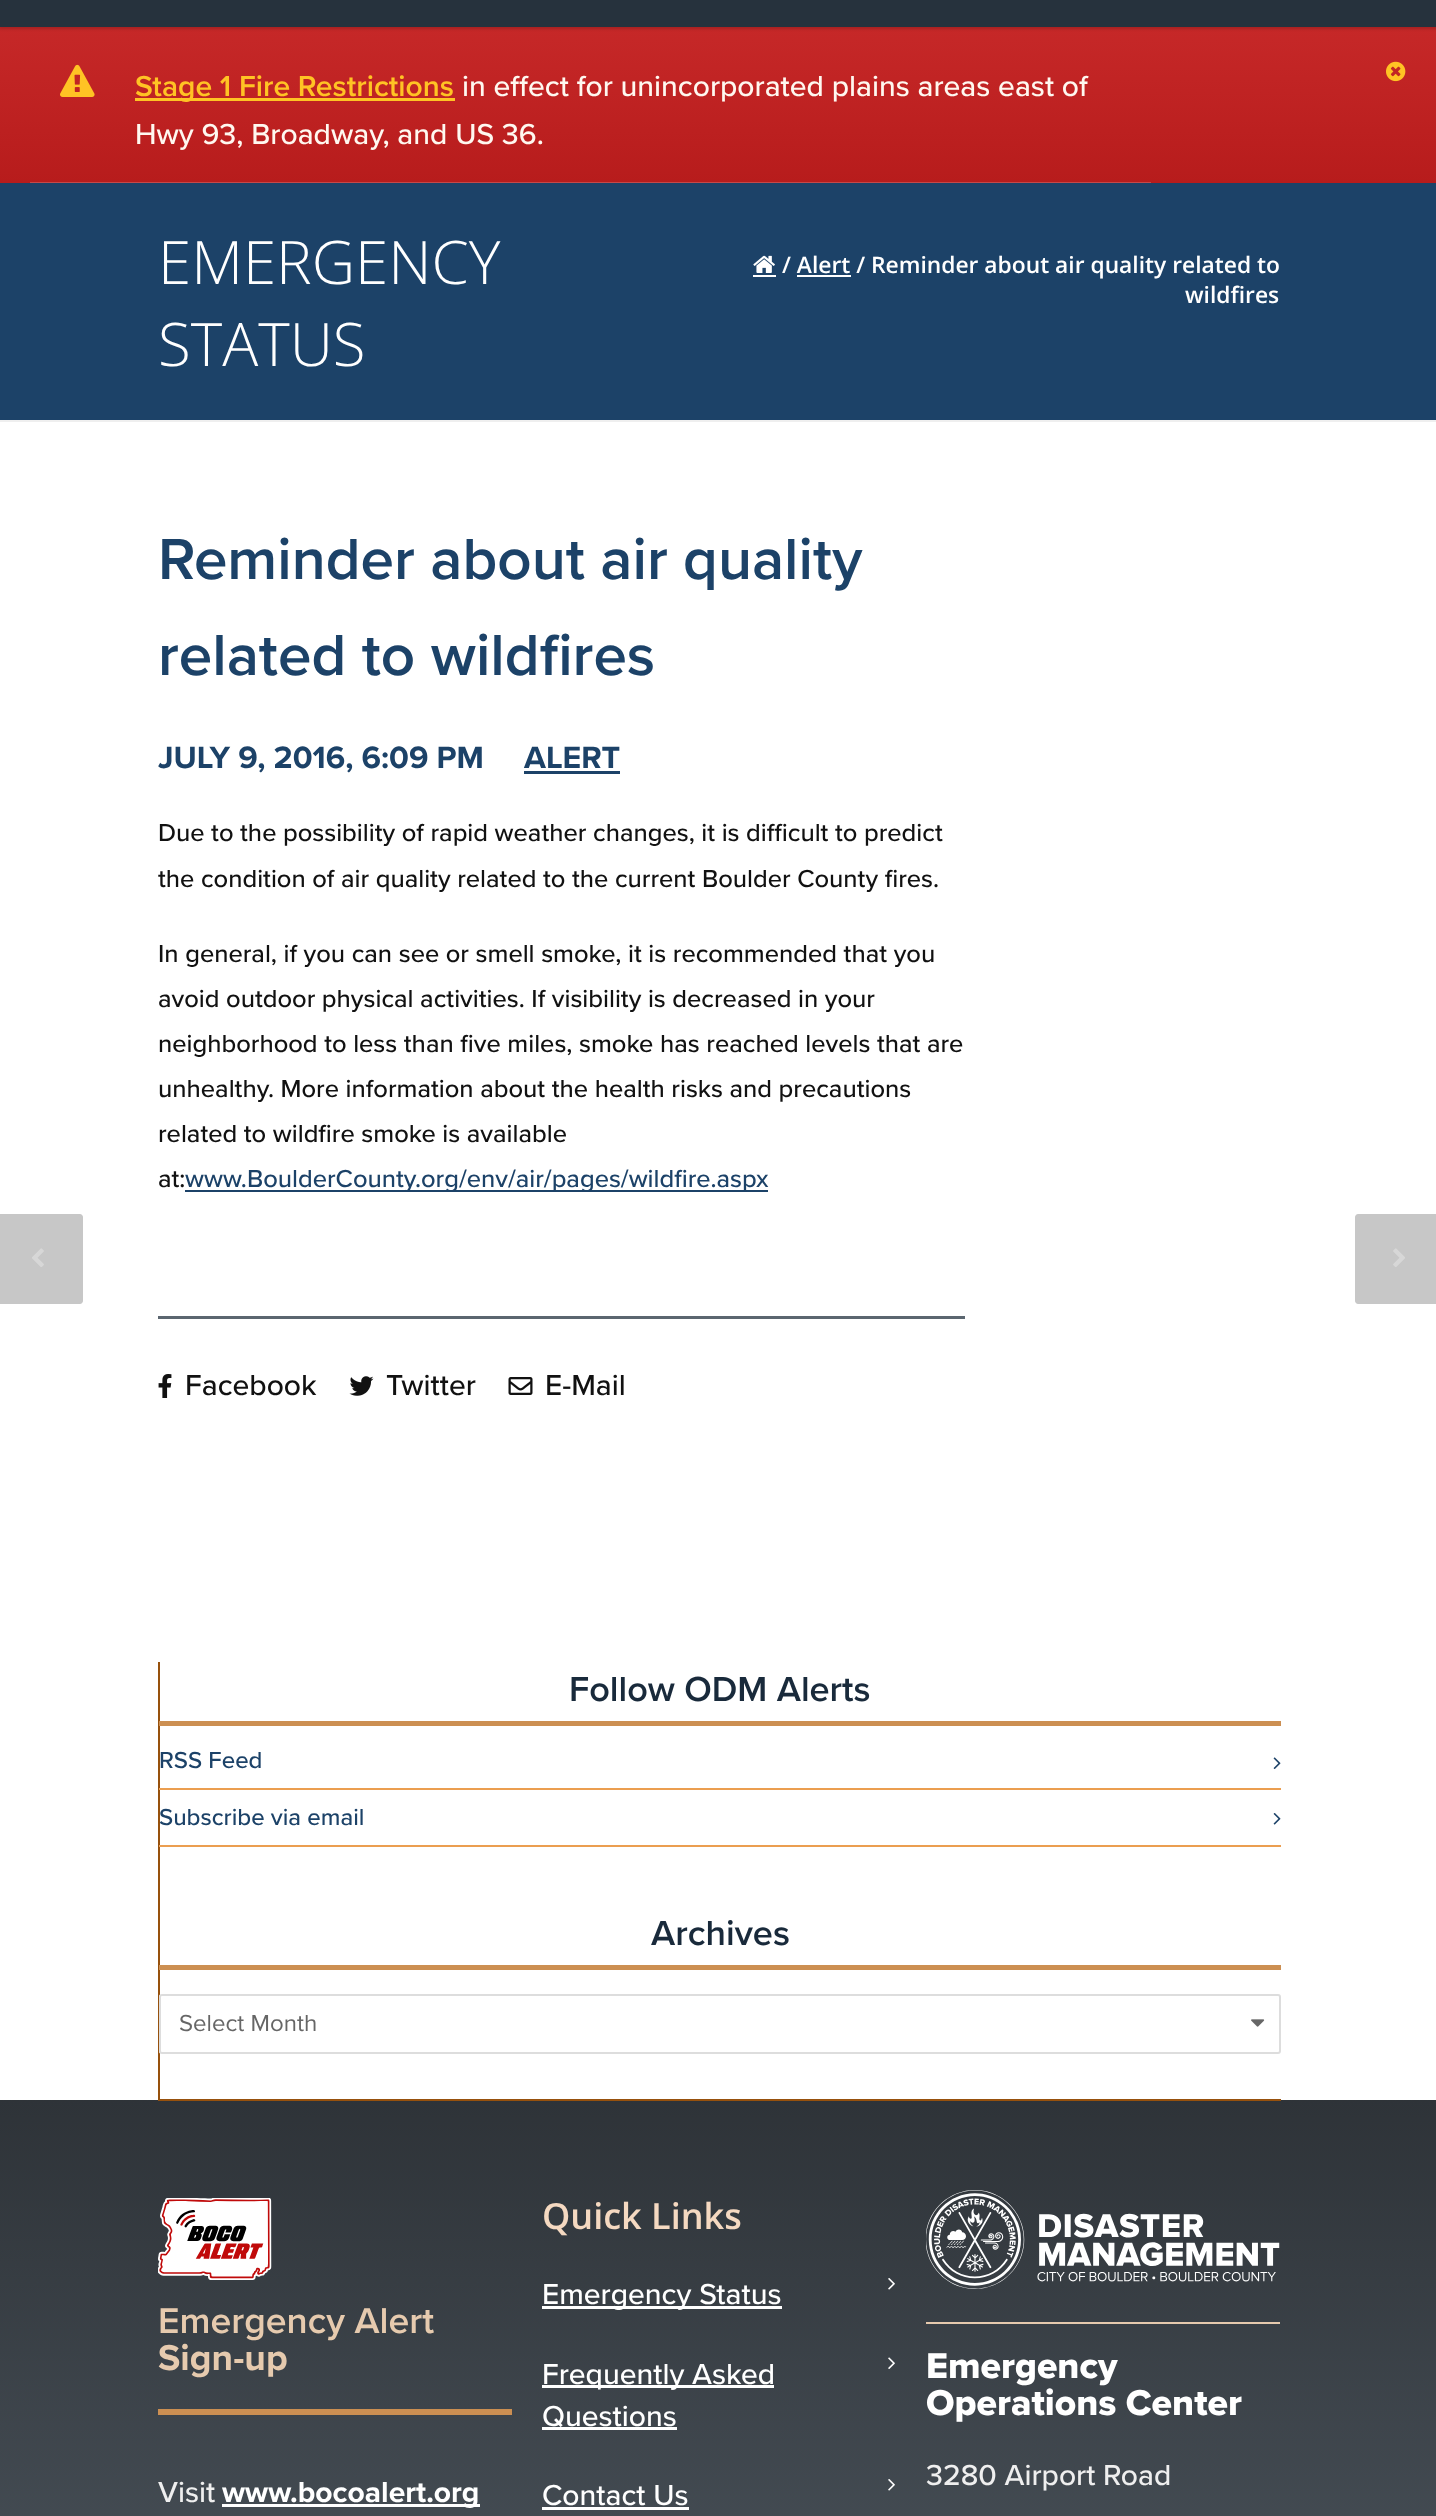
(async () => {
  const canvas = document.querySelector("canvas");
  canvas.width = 1436;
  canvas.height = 2516;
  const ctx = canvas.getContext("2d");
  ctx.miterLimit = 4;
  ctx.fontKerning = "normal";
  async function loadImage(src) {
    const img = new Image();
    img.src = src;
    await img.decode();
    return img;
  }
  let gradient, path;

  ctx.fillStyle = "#ffffff";
  ctx.fillRect(0, 0, 1436, 2516);
  gradient = ctx.createLinearGradient(719, 27, 719, 183);
  gradient.addColorStop(0, "#c62828");
  gradient.addColorStop(1, "#b71c1c");
  ctx.fillStyle = gradient;
  ctx.fillRect(0, 27, 1436, 156);
  ctx.fillStyle = "rgba(0, 0, 0, 0.16)";
  ctx.filter = "blur(1.5px)";
  ctx.beginPath();
  ctx.rect(-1, -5, 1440, 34);
  ctx.fill();
  ctx.filter = "none";
  ctx.fillStyle = "#26323d";
  ctx.fillRect(0, 0, 1436, 27);
  ctx.drawImage(await loadImage("img/1.png"), 1386, 61, 20, 21);
  ctx.fillStyle = "#c54949";
  ctx.fillRect(30, 182, 1121, 1);
  ctx.drawImage(await loadImage("img/2.png"), 60, 64, 35, 33);
  for (const [x, y, w, h, color] of [
    [135, 98, 320, 3, "#ffc324"],
    [0, 183, 1436, 237, "#1c4268"],
    [0, 420, 1436, 2, "#efefef"],
  ]) {
    ctx.fillStyle = color;
    ctx.fillRect(x, y, w, h);
  }
  ctx.drawImage(await loadImage("img/3.png"), 753, 255, 22, 18);
  for (const [x, y, w, h, color] of [
    [753, 275, 23, 2, "#ffffff"],
    [797, 275, 54, 2, "#ffffff"],
    [158, 1316, 807, 3, "#5b6670"],
    [524, 771, 96, 3, "#1c4268"],
    [185, 1190, 583, 2, "#1c4268"],
  ]) {
    ctx.fillStyle = color;
    ctx.fillRect(x, y, w, h);
  }
  ctx.fillStyle = "#c7c7c7";
  path = new Path2D("M-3 1214H80C81.5 1214 83 1215.5 83 1217V1301C83 1302.5 81.5 1304 80 1304H-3Z");
  ctx.fill(path);
  ctx.drawImage(await loadImage("img/4.png"), 32, 1248, 12, 19);
  path = new Path2D("M1358 1214H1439V1304H1358C1356.5 1304 1355 1302.5 1355 1301V1217C1355 1215.5 1356.5 1214 1358 1214Z");
  ctx.fill(path);
  ctx.drawImage(await loadImage("img/5.png"), 1393, 1248, 12, 19);
  ctx.drawImage(await loadImage("img/6.png"), 158, 1374, 14, 24);
  ctx.drawImage(await loadImage("img/7.png"), 349, 1376, 25, 20);
  ctx.drawImage(await loadImage("img/8.png"), 508, 1377, 25, 18);
  gradient = ctx.createLinearGradient(719, 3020, 719, 2100);
  gradient.addColorStop(0, "#5b6670");
  gradient.addColorStop(1, "#2e3338");
  ctx.fillStyle = gradient;
  ctx.fillRect(0, 2100, 1436, 416);
  for (const [x, y, w, h, color] of [
    [158, 2099, 1123, 2, "#97510d"],
    [158, 1662, 2, 438, "#97510d"],
    [159, 1721, 1122, 5, "#cc8f52"],
    [159, 1788, 1122, 2, "#eb9e50"],
  ]) {
    ctx.fillStyle = color;
    ctx.fillRect(x, y, w, h);
  }
  ctx.drawImage(await loadImage("img/9.png"), 1273, 1757, 8, 12);
  ctx.fillRect(159, 1845, 1122, 2);
  ctx.drawImage(await loadImage("img/10.png"), 1273, 1813, 8, 12);
  ctx.fillStyle = "#cc8f52";
  ctx.fillRect(159, 1965, 1122, 5);
  ctx.fillStyle = "#ffffff";
  ctx.beginPath();
  ctx.roundRect(159, 1994, 1122, 60, 3);
  ctx.fill();
  ctx.drawImage(await loadImage("img/11.png"), 1251, 2019, 14, 8);
  ctx.beginPath();
  ctx.roundRect(160, 1995, 1120, 58, 2);
  ctx.strokeStyle = "#dddddd";
  ctx.lineWidth = 2;
  ctx.stroke();
  ctx.drawImage(await loadImage("img/12.png"), 158, 2198, 114, 82);
  for (const [x, y, w, h, color] of [
    [158, 2409, 354, 6, "#cc8f52"],
    [222, 2504, 258, 3, "#ffffff"],
    [542, 2306, 240, 3, "#ffffff"],
  ]) {
    ctx.fillStyle = color;
    ctx.fillRect(x, y, w, h);
  }
  ctx.drawImage(await loadImage("img/13.png"), 888, 2278, 7, 12);
  ctx.fillRect(542, 2385, 232, 3);
  ctx.fillRect(542, 2427, 135, 3);
  ctx.drawImage(await loadImage("img/14.png"), 888, 2357, 7, 12);
  ctx.fillRect(542, 2507, 147, 3);
  ctx.drawImage(await loadImage("img/15.png"), 888, 2479, 7, 12);
  ctx.fillStyle = "#e6caae";
  ctx.fillRect(926, 2322, 354, 2);
  ctx.drawImage(await loadImage("img/16.png"), 926, 2190, 354, 99);
  ctx.font = "600 30px Proxima Nova";
  ctx.fillStyle = "#ffc324";
  ctx.fillText("Stage 1 Fire Restrictions", 135, 96);
  ctx.font = "500 30px Proxima Nova";
  ctx.fillStyle = "#fff8f0";
  ctx.fillText("in effect for unincorporated plains areas east of", 462, 96);
  ctx.fillText("Hwy 93, Broadway, and US 36.", 135, 144);
  ctx.font = "300 60px Open Sans";
  ctx.fillStyle = "#ffffff";
  ctx.fillText("EMERGENCY", 158, 284);
  ctx.fillText("STATUS", 158, 366);
  ctx.font = "600 22.8px Open Sans";
  ctx.fillText("/ Alert / Reminder about air quality related to", 782, 273);
  ctx.fillText("wildfires", 1185, 303);
  ctx.font = "600 60px Proxima Nova";
  ctx.fillStyle = "#1c4268";
  ctx.fillText("Reminder about air quality", 158, 579);
  ctx.fillText("related to wildfires", 158, 675);
  ctx.font = "bold 32px Proxima Nova";
  ctx.fillText("JULY 9, 2016, 6:09 PM", 158, 768);
  ctx.fillText("ALERT", 524, 768);
  ctx.font = "500 25.5px Proxima Nova";
  ctx.fillStyle = "#111111";
  ctx.fillText("Due to the possibility of rapid weather changes, it is difficult to predict", 158, 841);
  ctx.save();
  ctx.beginPath();
  ctx.rect(158, 512, 807, 754);
  ctx.clip();
  ctx.fillText("the condition of air quality related to the current Boulder County fires.", 158, 887);
  ctx.restore();
  for (const [text, x, y] of [
    ["In general, if you can see or smell smoke, it is recommended that you", 158, 962],
    ["avoid outdoor physical activities. If visibility is decreased in your", 158, 1007],
    ["neighborhood to less than five miles, smoke has reached levels that are", 158, 1052],
    ["unhealthy. More information about the health risks and precautions", 158, 1097],
    ["related to wildfire smoke is available", 158, 1142],
    ["at:", 158, 1187],
  ]) {
    ctx.fillText(text, x, y);
  }
  ctx.fillStyle = "#1c4268";
  ctx.fillText("www.BoulderCounty.org/env/air/pages/wildfire.aspx", 185, 1187);
  ctx.font = "500 30px Proxima Nova";
  ctx.fillStyle = "#111111";
  for (const [text, x, y] of [
    ["Facebook", 185, 1395],
    ["Twitter", 386, 1395],
    ["E-Mail", 545, 1395],
  ]) {
    ctx.fillText(text, x, y);
  }
  ctx.font = "600 36px Proxima Nova";
  ctx.fillStyle = "#192a3b";
  ctx.fillText("Follow ODM Alerts", 569, 1701);
  ctx.font = "500 24px Proxima Nova";
  ctx.fillStyle = "#1c4268";
  ctx.fillText("RSS Feed", 159, 1768);
  ctx.fillText("Subscribe via email", 159, 1825);
  ctx.font = "600 36px Proxima Nova";
  ctx.fillStyle = "#192a3b";
  ctx.fillText("Archives", 651, 1945);
  ctx.font = "24px Proxima Nova";
  ctx.fillStyle = "#666666";
  ctx.fillText("Select Month", 179, 2031);
  ctx.font = "600 37.25px Proxima Nova";
  ctx.fillStyle = "#e6caae";
  ctx.fillText("Emergency Alert", 158, 2333);
  ctx.font = "bold 37.25px Proxima Nova";
  ctx.fillText("Sign-up", 158, 2370);
  ctx.font = "500 30px Proxima Nova";
  ctx.fillStyle = "#efefef";
  ctx.fillText("Visit", 158, 2502);
  ctx.font = "bold 30px Proxima Nova";
  ctx.fillStyle = "#ffffff";
  ctx.fillText("www.bocoalert.org", 222, 2502);
  ctx.font = "600 36px Open Sans";
  ctx.fillStyle = "#f5d9c1";
  ctx.fillText("Quick Links", 542, 2229);
  ctx.font = "500 30px Proxima Nova";
  ctx.fillStyle = "#ffffff";
  for (const [text, x, y] of [
    ["Emergency Status", 542, 2304],
    ["Frequently Asked", 542, 2384],
    ["Questions", 542, 2426],
    ["Contact Us", 542, 2505],
  ]) {
    ctx.fillText(text, x, y);
  }
  ctx.font = "800 37.25px Proxima Nova";
  ctx.fillText("Emergency", 926, 2378);
  ctx.fillText("Operations Center", 926, 2415);
  ctx.font = "500 30px Proxima Nova";
  ctx.fillStyle = "#efefef";
  ctx.fillText("3280 Airport Road", 926, 2485);
})();
